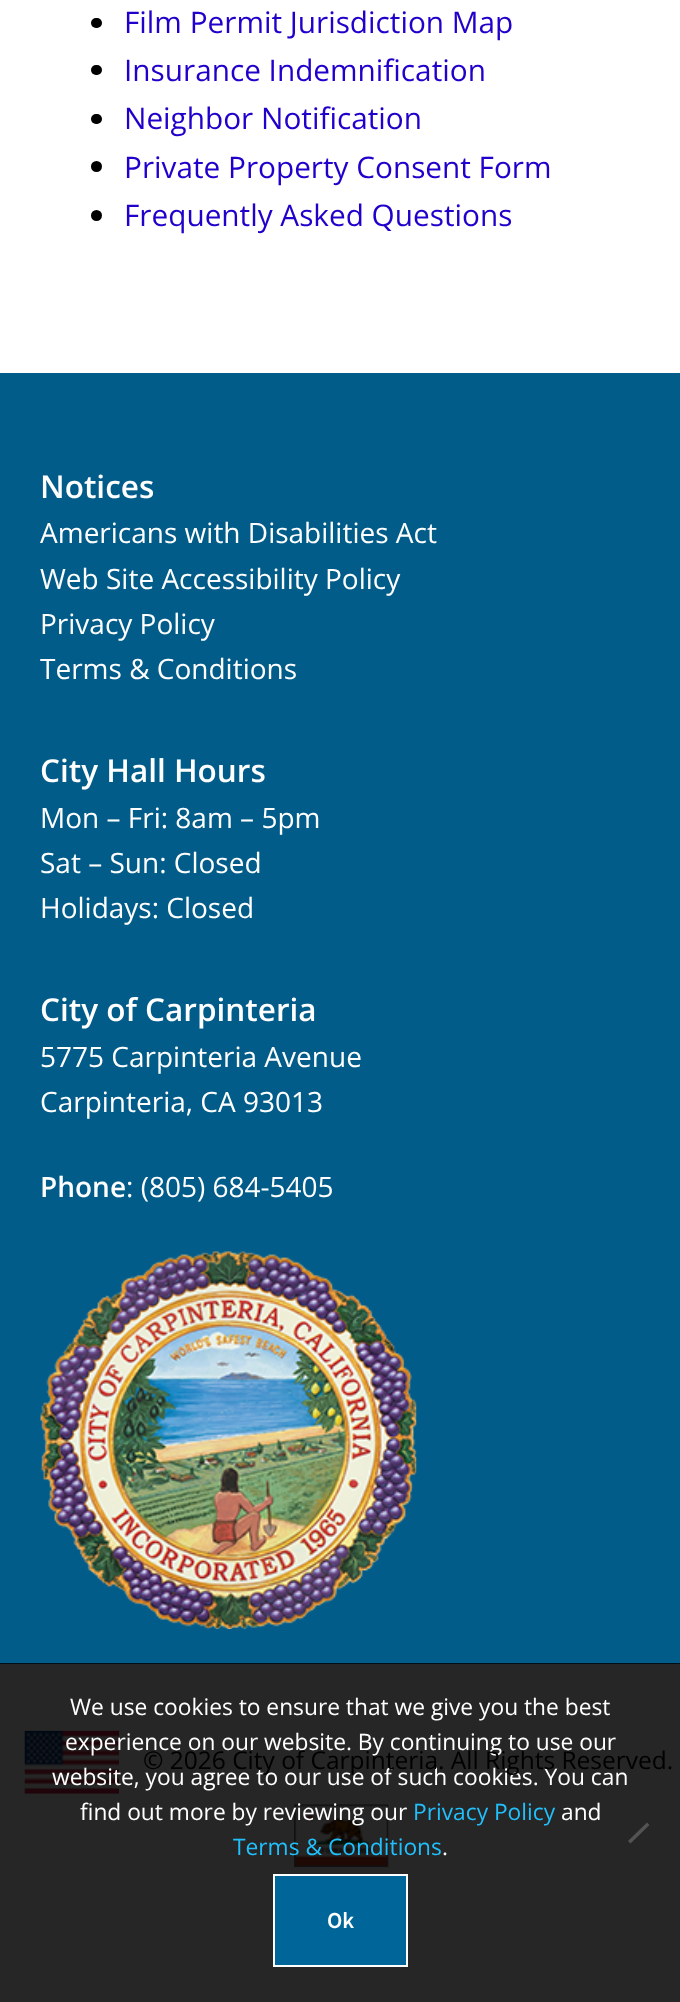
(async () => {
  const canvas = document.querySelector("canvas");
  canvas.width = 680;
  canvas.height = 2002;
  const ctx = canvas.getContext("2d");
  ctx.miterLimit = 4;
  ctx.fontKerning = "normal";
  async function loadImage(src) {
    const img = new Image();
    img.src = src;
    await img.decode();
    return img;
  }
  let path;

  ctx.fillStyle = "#ffffff";
  ctx.fillRect(0, 0, 680, 2002);
  ctx.fillStyle = "#262626";
  ctx.fillRect(0, 1664, 680, 338);
  ctx.fillStyle = "#000000";
  ctx.beginPath();
  ctx.roundRect(91, 18, 11, 10, 5);
  ctx.fill();
  ctx.beginPath();
  ctx.roundRect(91, 65, 11, 10, 5);
  ctx.fill();
  ctx.beginPath();
  ctx.roundRect(91, 114, 11, 10, 5);
  ctx.fill();
  ctx.beginPath();
  ctx.arc(96.5, 166.5, 5.5, 0, Math.PI * 2);
  ctx.fill();
  ctx.beginPath();
  ctx.arc(96.5, 215.5, 5.5, 0, Math.PI * 2);
  ctx.fill();
  ctx.fillStyle = "#015c89";
  ctx.fillRect(0, 373, 680, 1290);
  ctx.fillStyle = "#000e15";
  ctx.fillRect(0, 1663, 680, 1);
  ctx.drawImage(await loadImage("img/1.png"), 40, 1251, 377, 379);
  ctx.fillStyle = "#535353";
  path = new Path2D("M647 1822.5L649.5 1825L630.5 1843.5L628 1841Z");
  ctx.fill(path);
  ctx.fillStyle = "#006699";
  ctx.beginPath();
  ctx.rect(274, 1875, 133, 91);
  ctx.fill();
  ctx.strokeStyle = "#ffffff";
  ctx.lineWidth = 2;
  ctx.stroke();
  ctx.drawImage(await loadImage("img/2.png"), 24, 1730, 95, 64);
  ctx.drawImage(await loadImage("img/3.png"), 294, 1804, 95, 64);
  ctx.font = "29.75px Open Sans";
  ctx.fillStyle = "#2200cc";
  for (const [text, x, y] of [
    ["Film Permit Jurisdiction Map", 124, 33],
    ["Insurance Indemnification", 124, 81],
    ["Neighbor Notification", 124, 129],
    ["Private Property Consent Form", 124, 178],
    ["Frequently Asked Questions", 124, 226],
  ]) {
    ctx.fillText(text, x, y);
  }
  ctx.font = "600 31.5px Open Sans";
  ctx.fillStyle = "#ffffff";
  ctx.fillText("Notices", 40, 498);
  ctx.font = "28px Open Sans";
  for (const [text, x, y] of [
    ["Americans with Disabilities Act", 40, 543],
    ["Web Site Accessibility Policy", 40, 589],
    ["Privacy Policy", 40, 634],
    ["Terms & Conditions", 40, 679],
  ]) {
    ctx.fillText(text, x, y);
  }
  ctx.font = "600 31.5px Open Sans";
  ctx.fillText("City Hall Hours", 40, 782);
  ctx.font = "28px Open Sans";
  for (const [text, x, y] of [
    ["Mon – Fri: 8am – 5pm", 40, 828],
    ["Sat – Sun: Closed", 40, 873],
    ["Holidays: Closed", 40, 918],
  ]) {
    ctx.fillText(text, x, y);
  }
  ctx.font = "600 31.5px Open Sans";
  ctx.fillText("City of Carpinteria", 40, 1021);
  ctx.font = "28px Open Sans";
  ctx.fillText("5775 Carpinteria Avenue", 40, 1067);
  ctx.fillText("Carpinteria, CA 93013", 40, 1112);
  ctx.font = "600 28px Open Sans";
  ctx.fillText("Phone", 40, 1197);
  ctx.font = "28px Open Sans";
  ctx.fillText(": (805) 684-5405", 126, 1197);
  ctx.font = "22.75px Open Sans";
  for (const [text, x, y] of [
    ["We use cookies to ensure that we give you the best", 70, 1715],
    ["experience on our website. By continuing to use our", 65, 1750],
    ["website, you agree to our use of such cookies. You can", 52, 1785],
    ["find out more by reviewing our", 80, 1820],
  ]) {
    ctx.fillText(text, x, y);
  }
  ctx.fillStyle = "#21c0fc";
  ctx.fillText("Privacy Policy", 413, 1820);
  ctx.fillStyle = "#ffffff";
  ctx.fillText("and", 561, 1820);
  ctx.fillStyle = "#21c0fc";
  ctx.fillText("Terms & Conditions", 233, 1855);
  ctx.fillStyle = "#ffffff";
  ctx.fillText(".", 442, 1855);
  ctx.font = "600 22.75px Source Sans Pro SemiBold";
  ctx.fillText("Ok", 327, 1928);
  ctx.font = "24.5px Open Sans";
  ctx.fillStyle = "#000000";
  ctx.fillText("© 2026 City of Carpinteria. All Rights Reserved.", 143, 1769);
})();
